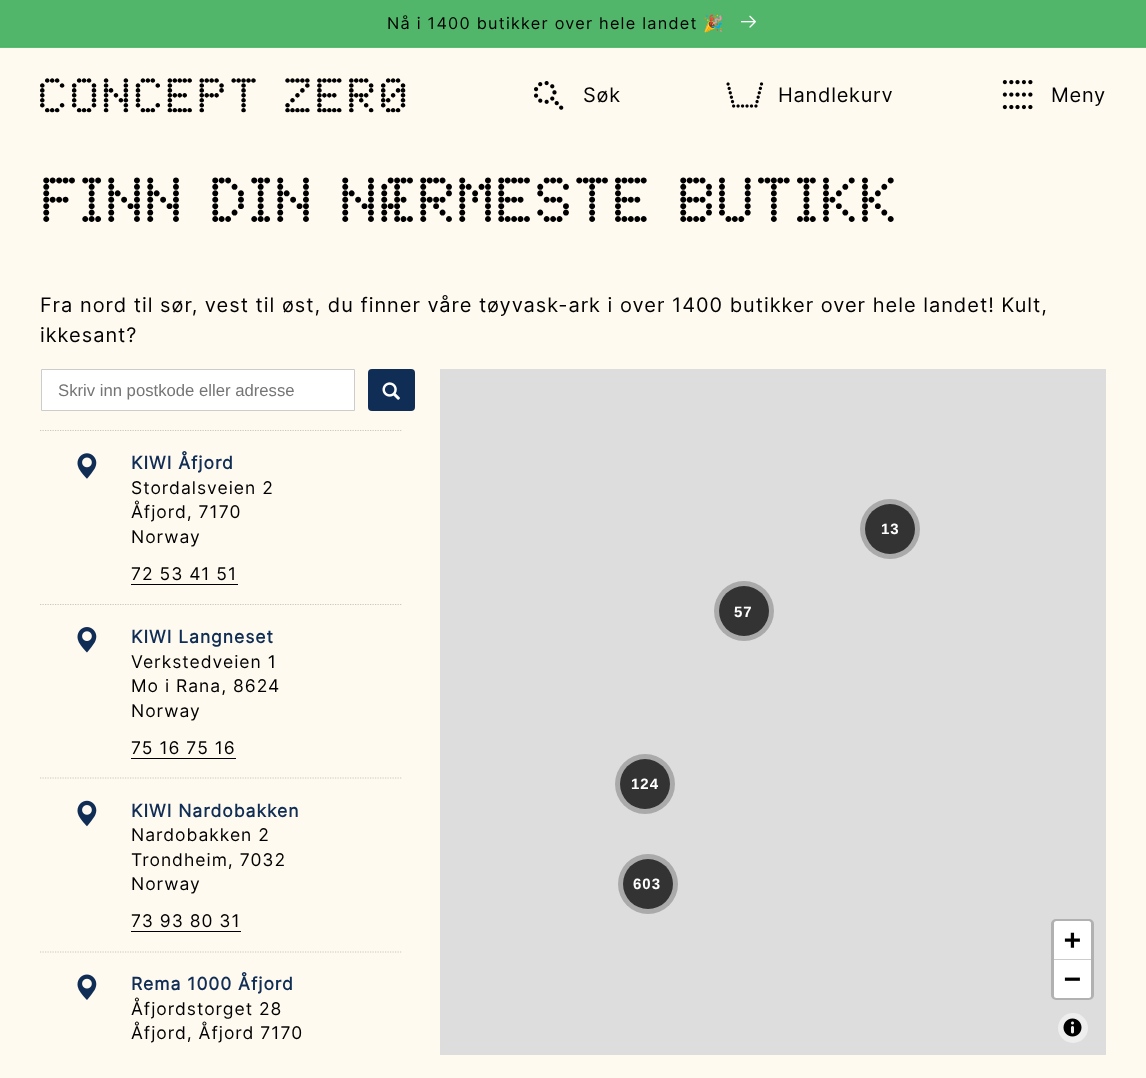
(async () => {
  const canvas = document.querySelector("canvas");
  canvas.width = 1146;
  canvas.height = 1078;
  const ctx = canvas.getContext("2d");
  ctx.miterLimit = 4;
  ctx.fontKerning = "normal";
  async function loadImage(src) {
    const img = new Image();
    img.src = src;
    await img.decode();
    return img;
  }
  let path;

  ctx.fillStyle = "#fffaef";
  ctx.fillRect(0, 0, 1146, 1078);
  for (const [x, y, w, h, color] of [
    [0, 47, 1146, 1, "#56c271"],
    [0, 46, 1146, 1, "#4fb268"],
    [0, 0, 1146, 46, "#51b66a"],
  ]) {
    ctx.fillStyle = color;
    ctx.fillRect(x, y, w, h);
  }
  ctx.drawImage(await loadImage("img/1.png"), 741, 15, 15, 13);
  ctx.drawImage(await loadImage("img/2.png"), 40, 78, 366, 35);
  ctx.drawImage(await loadImage("img/3.png"), 534, 81, 30, 29);
  ctx.drawImage(await loadImage("img/4.png"), 726, 82, 38, 26);
  ctx.drawImage(await loadImage("img/5.png"), 1002, 80, 31, 30);
  ctx.fillStyle = "#ffffff";
  ctx.beginPath();
  ctx.rect(41.5, 369.5, 313, 41);
  ctx.fill();
  ctx.strokeStyle = "#cccccc";
  ctx.stroke();
  ctx.fillStyle = "#102d55";
  ctx.beginPath();
  ctx.roundRect(368, 369, 47, 42, 4);
  ctx.fill();
  ctx.drawImage(await loadImage("img/6.png"), 382, 382, 18, 18);
  ctx.save();
  ctx.beginPath();
  ctx.rect(40, 430, 375, 625);
  ctx.clip();
  path = new Path2D("M40 430.5H402.5");
  ctx.strokeStyle = "#ccc8bf";
  ctx.lineWidth = 1.2;
  ctx.setLineDash([1.25, 1.25]);
  ctx.stroke(path);
  ctx.restore();
  ctx.drawImage(await loadImage("img/7.png"), 77, 453, 20, 26);
  ctx.fillStyle = "#000000";
  ctx.fillRect(131, 584, 107, 1);
  path = new Path2D("M40 604.5H402.5");
  ctx.strokeStyle = "#ccc8bf";
  ctx.lineWidth = 1.2;
  ctx.setLineDash([1.25, 1.25]);
  ctx.stroke(path);
  ctx.drawImage(await loadImage("img/8.png"), 77, 627, 20, 26);
  ctx.fillRect(131, 758, 105, 1);
  path = new Path2D("M40 778H402.5");
  ctx.stroke(path);
  ctx.drawImage(await loadImage("img/9.png"), 77, 800, 20, 27);
  ctx.fillRect(131, 931, 110, 1);
  path = new Path2D("M40 952H402.5");
  ctx.stroke(path);
  ctx.drawImage(await loadImage("img/10.png"), 77, 974, 20, 26);
  ctx.fillStyle = "#dddddd";
  ctx.fillRect(440, 369, 666, 686);
  ctx.fillStyle = "#aaaaaa";
  ctx.beginPath();
  ctx.arc(890, 529, 30, 0, Math.PI * 2);
  ctx.fill();
  ctx.fillStyle = "#333333";
  ctx.beginPath();
  ctx.arc(890, 529, 25, 0, Math.PI * 2);
  ctx.fill();
  ctx.fillStyle = "#aaaaaa";
  ctx.beginPath();
  ctx.arc(744, 611, 30, 0, Math.PI * 2);
  ctx.fill();
  ctx.fillStyle = "#333333";
  ctx.beginPath();
  ctx.arc(744, 611, 25, 0, Math.PI * 2);
  ctx.fill();
  ctx.fillStyle = "#aaaaaa";
  ctx.beginPath();
  ctx.arc(645, 784, 30, 0, Math.PI * 2);
  ctx.fill();
  ctx.fillStyle = "#333333";
  ctx.beginPath();
  ctx.arc(645, 784, 25, 0, Math.PI * 2);
  ctx.fill();
  ctx.fillStyle = "#aaaaaa";
  ctx.beginPath();
  ctx.arc(648, 884, 30, 0, Math.PI * 2);
  ctx.fill();
  ctx.fillStyle = "#333333";
  ctx.beginPath();
  ctx.arc(648, 884, 25, 0, Math.PI * 2);
  ctx.fill();
  ctx.beginPath();
  ctx.roundRect(1052.5, 920.5, 40, 78, 3.5);
  ctx.strokeStyle = "#b1b1b1";
  ctx.lineWidth = 3;
  ctx.setLineDash([]);
  ctx.stroke();
  ctx.fillStyle = "#ffffff";
  ctx.beginPath();
  ctx.roundRect(1054, 921, 37, 39, [2.5, 2.5, 0, 0]);
  ctx.fill();
  ctx.fillStyle = "#cccccc";
  ctx.fillRect(1054, 959, 37, 1);
  ctx.fillStyle = "#ffffff";
  ctx.beginPath();
  ctx.roundRect(1054, 960, 37, 38, [0, 0, 2.5, 2.5]);
  ctx.fill();
  ctx.fillStyle = "#eeeeee";
  ctx.beginPath();
  ctx.arc(1073, 1028, 15, 0, Math.PI * 2);
  ctx.fill();
  ctx.drawImage(await loadImage("img/11.png"), 1063, 1018, 19, 19);
  ctx.letterSpacing = "1.25px";
  ctx.font = "16.25px Inter";
  ctx.fillStyle = "#000000";
  ctx.fillText("Nå i 1400 butikker over hele landet", 387, 29);
  ctx.font = "16.25px Noto Color Emoji";
  ctx.fillText("🎉", 703, 29);
  ctx.letterSpacing = "0.75px";
  ctx.font = "20px Inter";
  for (const [text, x, y] of [
    ["Søk", 583, 102],
    ["Handlekurv", 778, 102],
    ["Meny", 1051, 102],
  ]) {
    ctx.fillText(text, x, y);
  }
  ctx.font = "65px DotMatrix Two";
  ctx.fillText("FINN DIN NÆRMESTE BUTIKK", 40, 222);
  ctx.letterSpacing = "1px";
  ctx.font = "20px Inter";
  ctx.fillText("Fra nord til sør, vest til øst, du finner våre tøyvask-ark i over 1400 butikker over hele landet! Kult,", 40, 312);
  ctx.fillText("ikkesant?", 40, 342);
  ctx.letterSpacing = "0px";
  ctx.font = "16.7px Liberation Sans";
  ctx.fillStyle = "#757575";
  ctx.fillText("Skriv inn postkode eller adresse", 58, 396);
  ctx.letterSpacing = "1px";
  ctx.font = "bold 17.5px Inter";
  ctx.fillStyle = "#102d55";
  ctx.fillText("KIWI Åfjord", 131, 469);
  ctx.font = "17.5px Inter";
  ctx.fillStyle = "#000000";
  for (const [text, x, y] of [
    ["Stordalsveien 2", 131, 494],
    ["Åfjord, 7170", 131, 518],
    ["Norway", 131, 543],
    ["72 53 41 51", 131, 580],
  ]) {
    ctx.fillText(text, x, y);
  }
  ctx.font = "bold 17.5px Inter";
  ctx.fillStyle = "#102d55";
  ctx.fillText("KIWI Langneset", 131, 643);
  ctx.font = "17.5px Inter";
  ctx.fillStyle = "#000000";
  for (const [text, x, y] of [
    ["Verkstedveien 1", 131, 668],
    ["Mo i Rana, 8624", 131, 692],
    ["Norway", 131, 717],
    ["75 16 75 16", 131, 754],
  ]) {
    ctx.fillText(text, x, y);
  }
  ctx.font = "bold 17.5px Inter";
  ctx.fillStyle = "#102d55";
  ctx.fillText("KIWI Nardobakken", 131, 817);
  ctx.font = "17.5px Inter";
  ctx.fillStyle = "#000000";
  for (const [text, x, y] of [
    ["Nardobakken 2", 131, 841],
    ["Trondheim, 7032", 131, 866],
    ["Norway", 131, 890],
    ["73 93 80 31", 131, 927],
  ]) {
    ctx.fillText(text, x, y);
  }
  ctx.font = "bold 17.5px Inter";
  ctx.fillStyle = "#102d55";
  ctx.fillText("Rema 1000 Åfjord", 131, 990);
  ctx.font = "17.5px Inter";
  ctx.fillStyle = "#000000";
  ctx.fillText("Åfjordstorget 28", 131, 1015);
  ctx.fillText("Åfjord, Åfjord 7170", 131, 1039);
  ctx.font = "bold 15px Liberation Sans";
  ctx.fillStyle = "#ffffff";
  for (const [text, x, y] of [
    ["13", 881, 534],
    ["57", 734, 617],
    ["124", 631, 789],
    ["603", 633, 889],
  ]) {
    ctx.fillText(text, x, y);
  }
  ctx.font = "bold 28px DejaVu Sans Mono";
  ctx.fillStyle = "#000000";
  ctx.fillText("+", 1064, 949);
  ctx.fillText("−", 1064, 988);
})();
